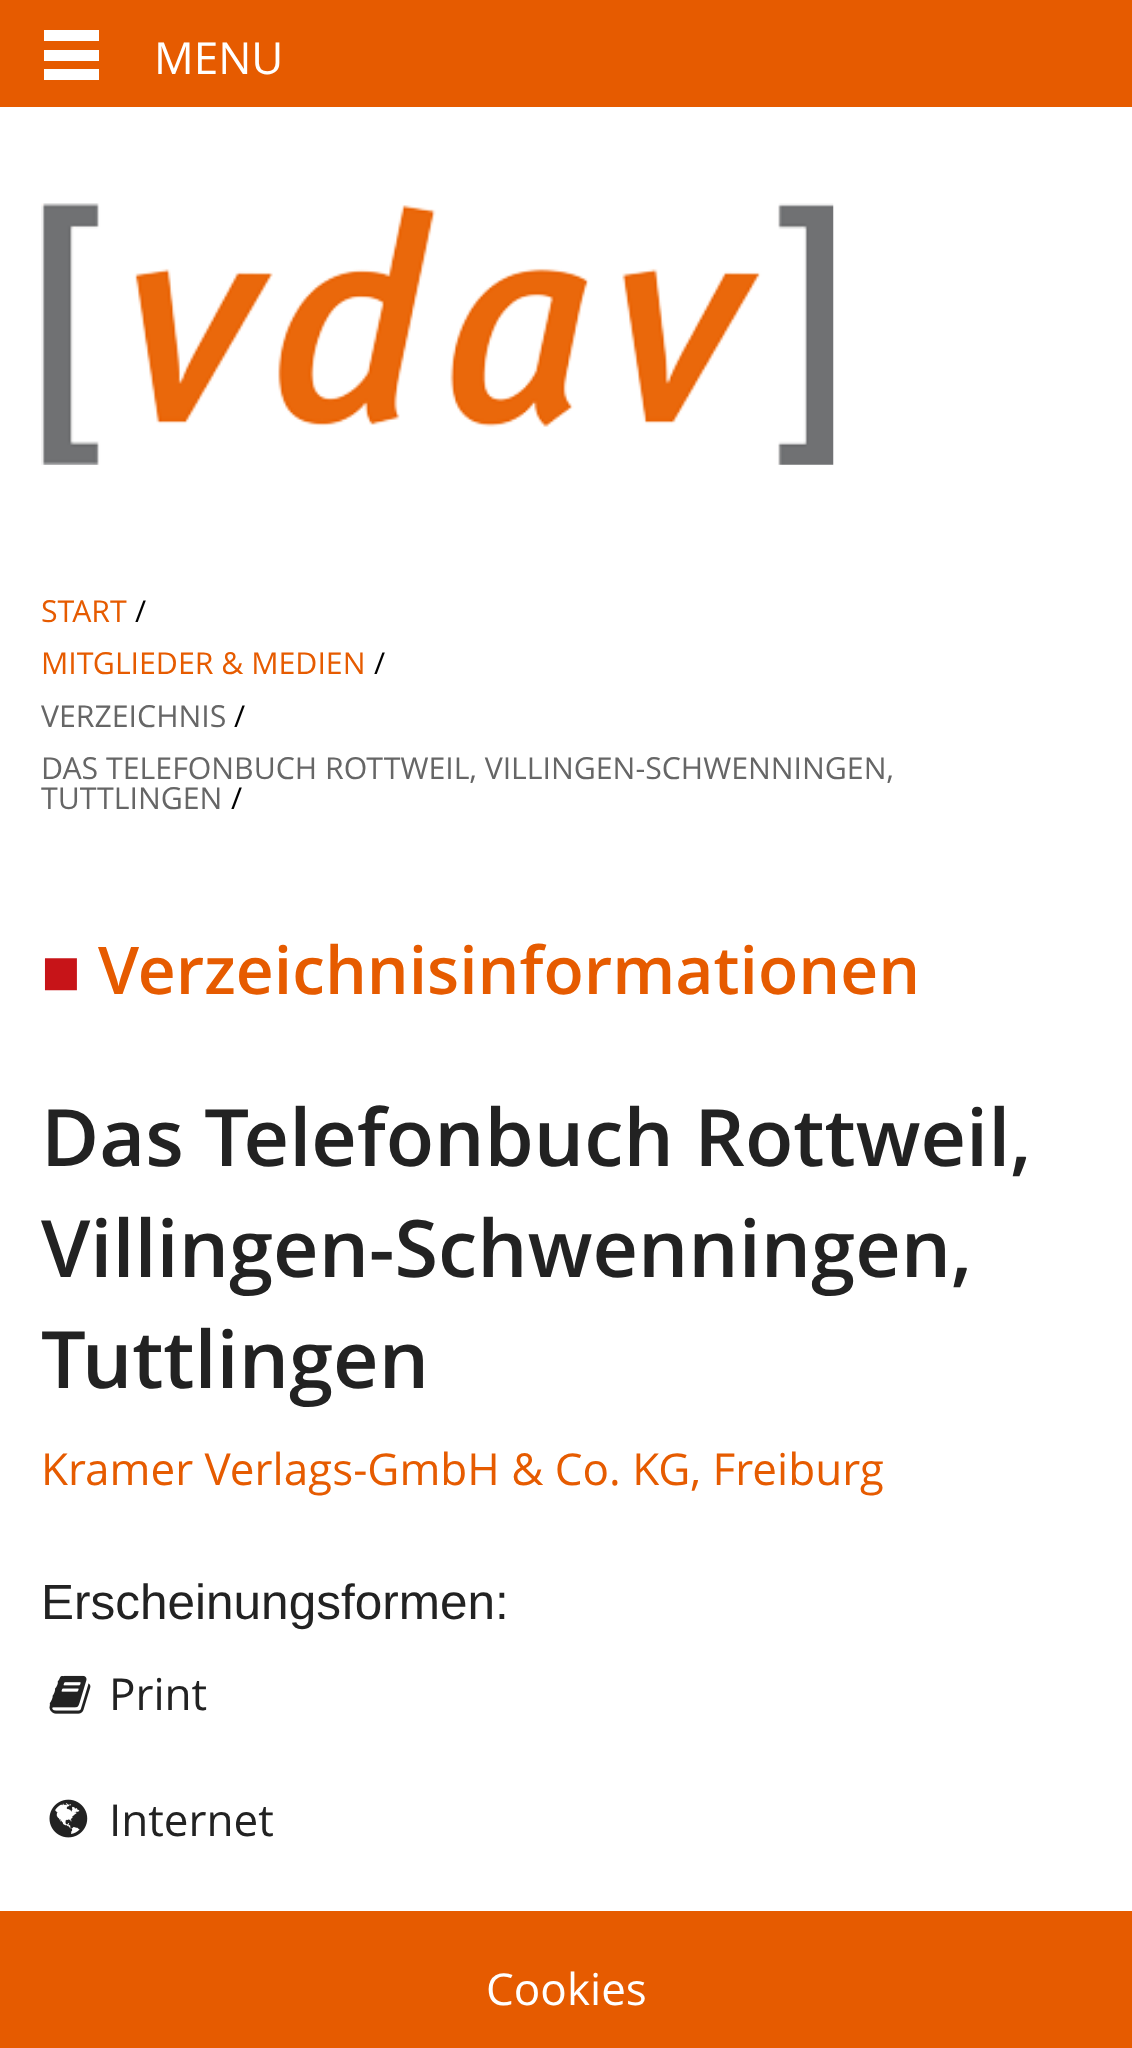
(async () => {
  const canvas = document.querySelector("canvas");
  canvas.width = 1132;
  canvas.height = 2048;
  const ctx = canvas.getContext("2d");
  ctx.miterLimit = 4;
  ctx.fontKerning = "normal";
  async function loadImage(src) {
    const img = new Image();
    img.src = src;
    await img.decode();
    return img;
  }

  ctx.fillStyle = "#ffffff";
  ctx.fillRect(0, 0, 1132, 2048);
  ctx.fillStyle = "#e65b00";
  ctx.fillRect(0, 0, 1132, 107);
  ctx.drawImage(await loadImage("img/1.png"), 41, 203, 793, 262);
  for (const [x, y, w, h, color] of [
    [44, 69, 55, 11, "#ffffff"],
    [44, 50, 55, 11, "#ffffff"],
    [44, 30, 55, 11, "#ffffff"],
  ]) {
    ctx.fillStyle = color;
    ctx.fillRect(x, y, w, h);
  }
  ctx.drawImage(await loadImage("img/2.png"), 49, 1675, 42, 39);
  ctx.drawImage(await loadImage("img/3.png"), 49, 1799, 39, 39);
  ctx.fillStyle = "#e65b00";
  ctx.fillRect(0, 1911, 1132, 137);
  ctx.font = "44px Open Sans";
  ctx.fillStyle = "#ffffff";
  ctx.fillText("MENU", 154, 74);
  ctx.font = "30.25px Open Sans";
  ctx.fillStyle = "#e65b00";
  ctx.fillText("START", 41, 622);
  ctx.fillStyle = "#000000";
  ctx.fillText("/", 135, 622);
  ctx.fillStyle = "#e65b00";
  ctx.fillText("MITGLIEDER & MEDIEN", 41, 674);
  ctx.fillStyle = "#000000";
  ctx.fillText("/", 374, 674);
  ctx.fillStyle = "#666666";
  ctx.fillText("VERZEICHNIS", 41, 727);
  ctx.fillStyle = "#000000";
  ctx.fillText("/", 234, 727);
  ctx.fillStyle = "#666666";
  ctx.fillText("DAS TELEFONBUCH ROTTWEIL, VILLINGEN-SCHWENNINGEN,", 41, 779);
  ctx.fillText("TUTTLINGEN", 41, 809);
  ctx.fillStyle = "#000000";
  ctx.fillText("/", 231, 809);
  ctx.font = "bold 66px Liberation Serif";
  ctx.fillStyle = "#c71418";
  ctx.fillText("■", 41, 994);
  ctx.font = "600 66px Open Sans";
  ctx.fillStyle = "#e65b00";
  ctx.fillText("Verzeichnisinformationen", 98, 994);
  ctx.font = "600 79.25px Open Sans";
  ctx.fillStyle = "#222222";
  for (const [text, x, y] of [
    ["Das Telefonbuch Rottweil,", 41, 1166],
    ["Villingen-Schwenningen,", 41, 1277],
    ["Tuttlingen", 41, 1388],
  ]) {
    ctx.fillText(text, x, y);
  }
  ctx.font = "44px Open Sans";
  ctx.fillStyle = "#e65b00";
  ctx.fillText("Kramer Verlags-GmbH & Co. KG, Freiburg", 41, 1485);
  ctx.font = "49.5px Liberation Sans";
  ctx.fillStyle = "#222222";
  ctx.fillText("Erscheinungsformen:", 41, 1619);
  ctx.font = "44px Open Sans";
  ctx.fillText("Print", 109, 1710);
  ctx.fillText("Internet", 109, 1836);
  ctx.fillStyle = "#ffffff";
  ctx.fillText("Cookies", 486, 2005);
})();
